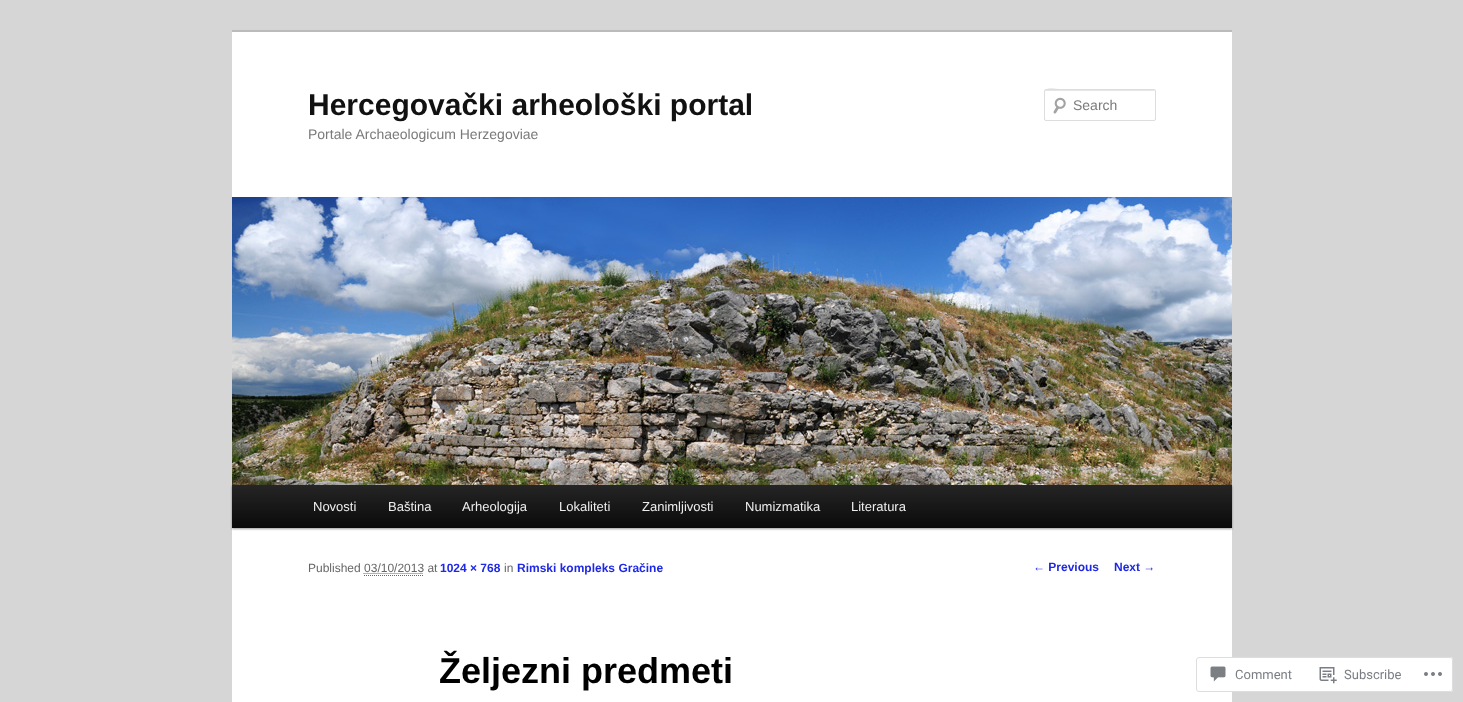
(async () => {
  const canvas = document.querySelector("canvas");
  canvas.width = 1463;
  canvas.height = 702;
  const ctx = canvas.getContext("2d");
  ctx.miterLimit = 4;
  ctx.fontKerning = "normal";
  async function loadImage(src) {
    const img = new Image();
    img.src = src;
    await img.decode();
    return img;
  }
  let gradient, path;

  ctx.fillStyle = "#d6d6d6";
  ctx.fillRect(0, 0, 1463, 702);
  ctx.fillStyle = "#ffffff";
  ctx.fillRect(232, 32, 1000, 670);
  ctx.fillStyle = "#bbbbbb";
  ctx.fillRect(232, 30, 1000, 2);
  ctx.drawImage(await loadImage("img/1.png"), 1053, 97, 13, 17);
  ctx.fillStyle = "#e6e6e6";
  path = new Path2D("M1046 91H1155V92L1154 90H1064C1060 90 1045 85 1045 92C1045 91 1045 91 1046 91Z");
  ctx.fill(path);
  ctx.beginPath();
  ctx.roundRect(1044.5, 89.5, 111, 31, 1.5);
  ctx.strokeStyle = "#dddddd";
  ctx.stroke();
  ctx.fillStyle = "rgba(0, 0, 0, 0.4)";
  ctx.filter = "blur(1px)";
  ctx.beginPath();
  ctx.rect(232, 486, 1000, 43);
  ctx.fill();
  ctx.filter = "none";
  ctx.drawImage(await loadImage("img/2.png"), 232, 197, 1000, 288);
  gradient = ctx.createLinearGradient(732, 485, 732, 528);
  gradient.addColorStop(0, "#252525");
  gradient.addColorStop(1, "#0a0a0a");
  ctx.fillStyle = gradient;
  ctx.fillRect(232, 485, 1000, 43);
  path = new Path2D("M364 575.5H424M363.5 573.5H423.5");
  ctx.strokeStyle = "#666666";
  ctx.setLineDash([1, 1]);
  ctx.stroke(path);
  ctx.fillStyle = "rgba(255, 255, 255, 0.98)";
  ctx.beginPath();
  ctx.roundRect(1196, 657, 257, 35, 3);
  ctx.fill();
  ctx.beginPath();
  ctx.roundRect(1196.5, 657.5, 256, 34, 2.5);
  ctx.strokeStyle = "rgba(220, 220, 222, 0.98)";
  ctx.setLineDash([]);
  ctx.stroke();
  ctx.drawImage(await loadImage("img/3.png"), 1210, 666, 16, 16);
  ctx.drawImage(await loadImage("img/4.png"), 1319, 667, 18, 17);
  ctx.drawImage(await loadImage("img/5.png"), 1424, 672, 18, 4);
  ctx.font = "bold 30px Liberation Sans";
  ctx.fillStyle = "#111111";
  ctx.fillText("Hercegovački arheološki portal", 308, 115);
  ctx.font = "14px Liberation Sans";
  ctx.fillStyle = "#7a7a7a";
  ctx.fillText("Portale Archaeologicum Herzegoviae", 308, 139);
  ctx.fillText("Search", 1073, 110);
  ctx.font = "13px Liberation Sans";
  ctx.fillStyle = "#eeeeee";
  for (const [text, x, y] of [
    ["Novosti", 313, 511],
    ["Baština", 388, 511],
    ["Arheologija", 462, 511],
    ["Lokaliteti", 559, 511],
    ["Zanimljivosti", 642, 511],
    ["Numizmatika", 745, 511],
    ["Literatura", 851, 511],
  ]) {
    ctx.fillText(text, x, y);
  }
  ctx.font = "12px Liberation Sans";
  ctx.fillStyle = "#666666";
  ctx.fillText("Published 03/10/2013 at", 308, 572);
  ctx.font = "bold 12px Liberation Sans";
  ctx.fillStyle = "#1f29e4";
  ctx.fillText("1024 × 768", 440, 572);
  ctx.font = "12px Liberation Sans";
  ctx.fillStyle = "#666666";
  ctx.fillText("in", 504, 572);
  ctx.font = "bold 12px Liberation Sans";
  ctx.fillStyle = "#1f29e4";
  ctx.fillText("Rimski kompleks Gračine", 517, 572);
  ctx.font = "bold 36px Liberation Sans";
  ctx.fillStyle = "#000000";
  ctx.fillText("Željezni predmeti", 439, 683);
  ctx.font = "bold 12px Liberation Sans";
  ctx.fillStyle = "#1f29e4";
  ctx.fillText("← Previous", 1033, 571);
  ctx.fillText("Next →", 1114, 571);
  ctx.font = "13px Roboto";
  ctx.fillStyle = "#7a7e84";
  ctx.fillText("Comment", 1235, 679);
  ctx.fillText("Subscribe", 1344, 679);
})();
